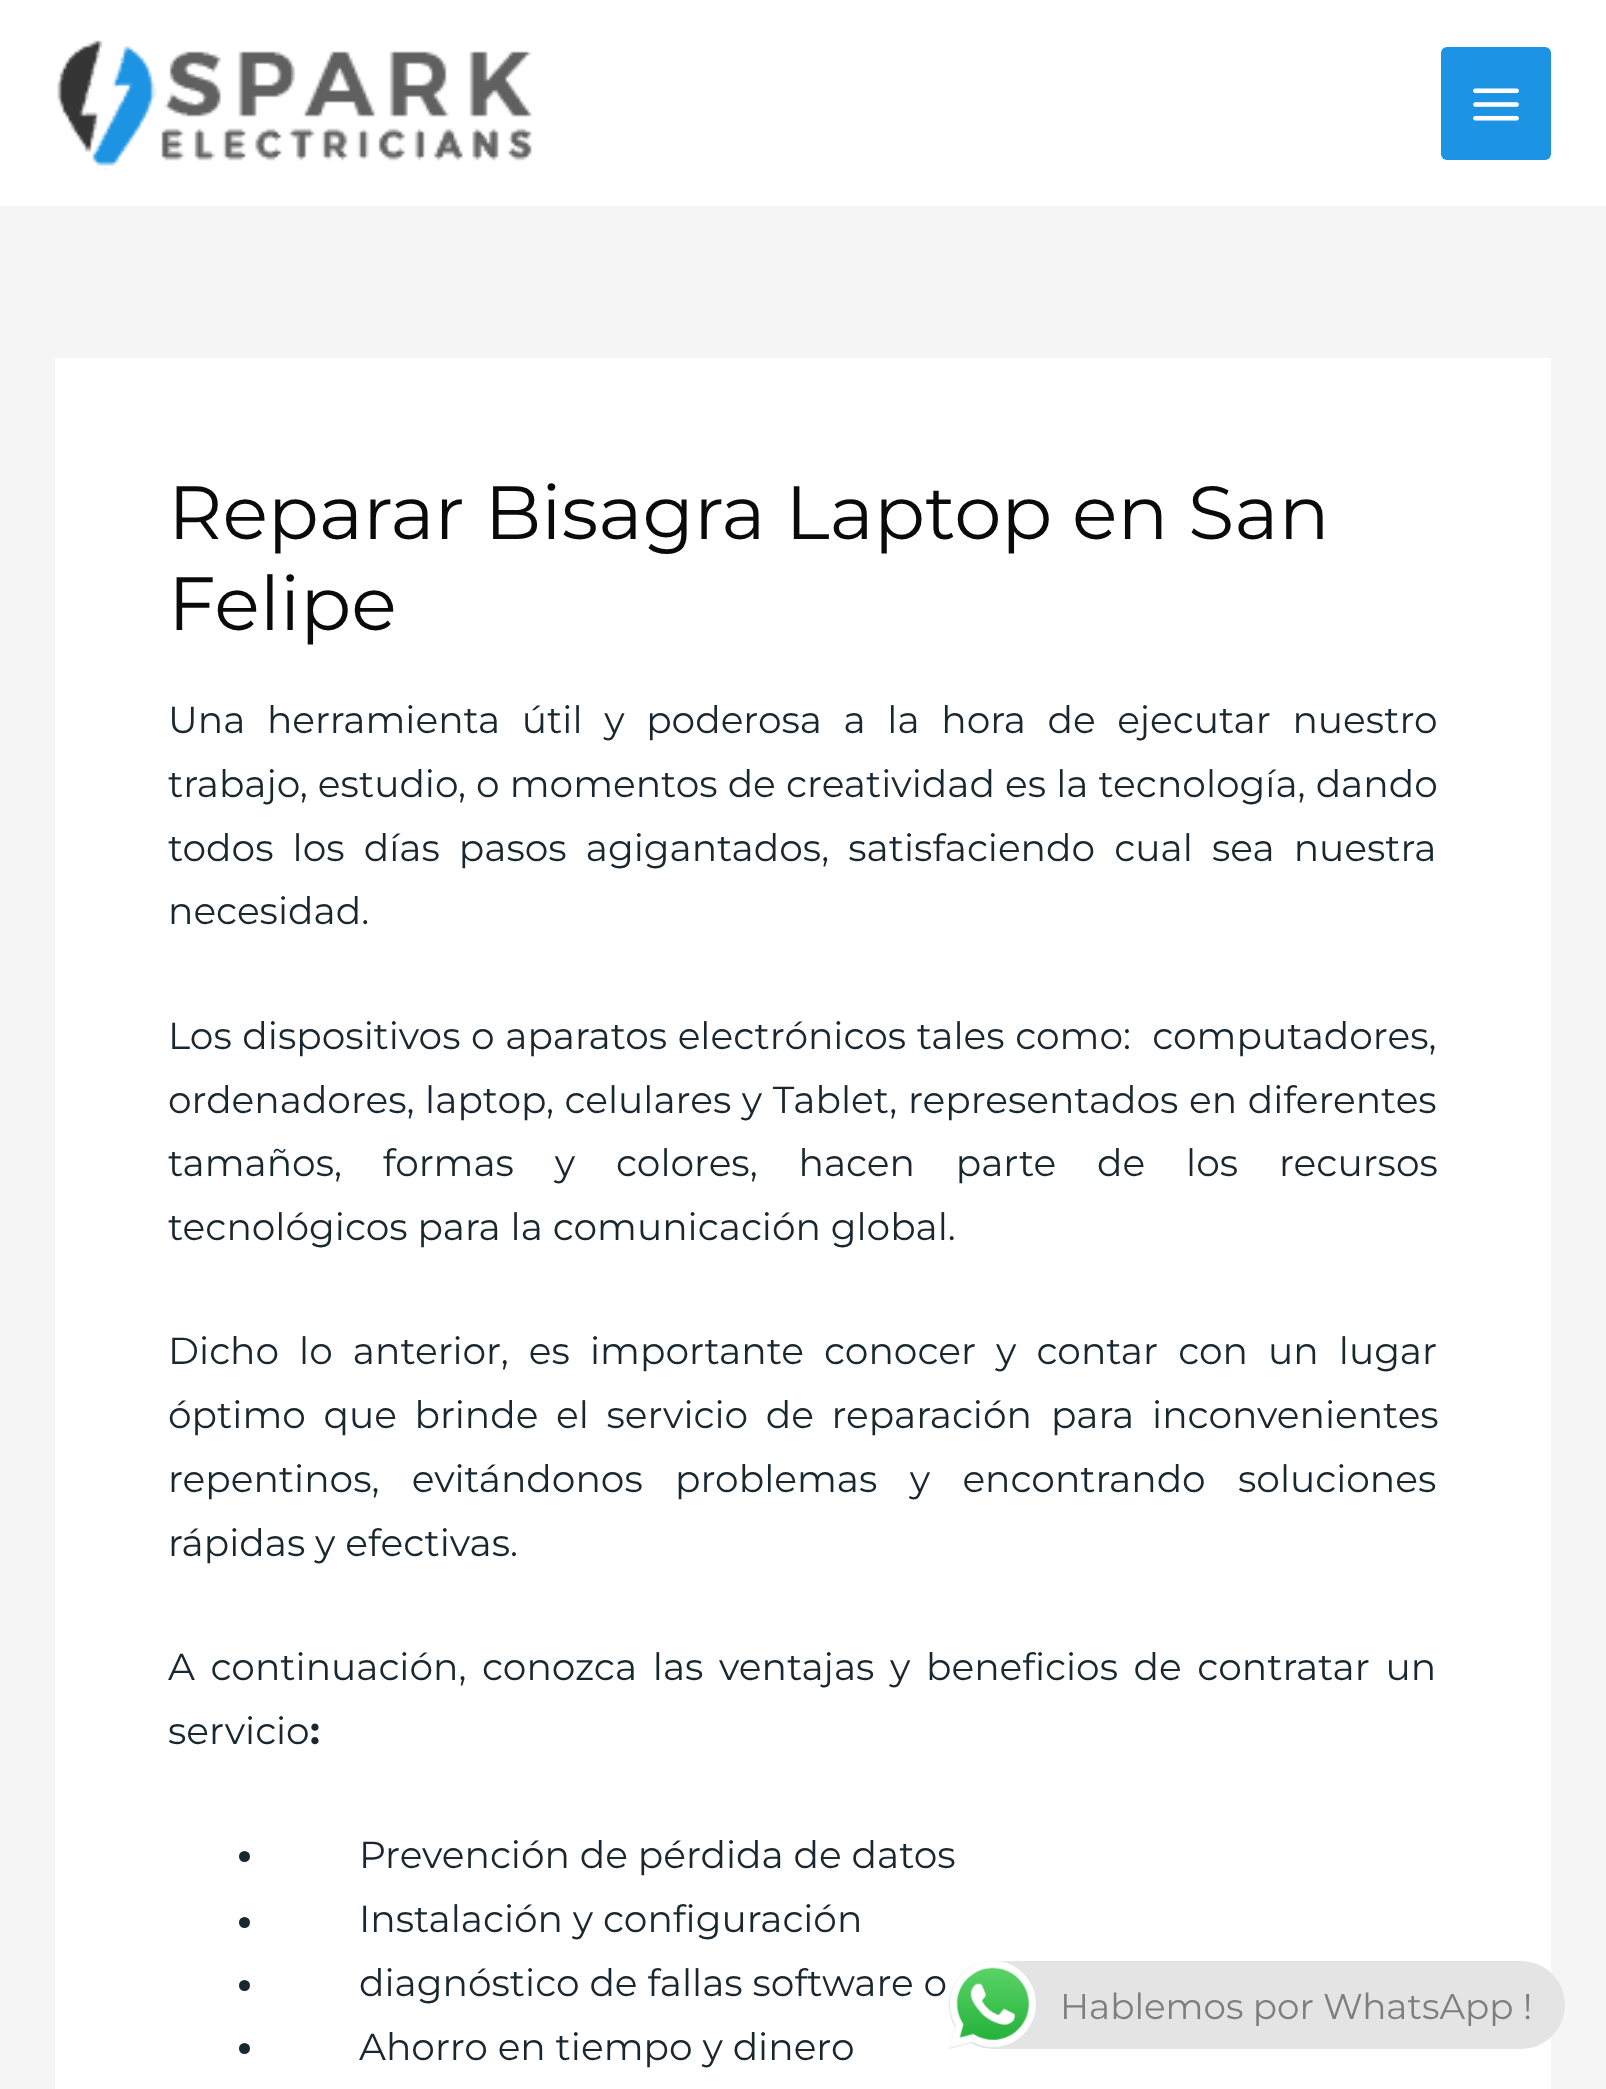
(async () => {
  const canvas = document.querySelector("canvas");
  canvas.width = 1606;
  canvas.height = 2089;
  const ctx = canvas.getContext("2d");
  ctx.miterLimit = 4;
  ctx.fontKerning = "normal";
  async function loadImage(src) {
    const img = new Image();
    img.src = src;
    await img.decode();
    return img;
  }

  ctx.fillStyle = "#f5f5f5";
  ctx.fillRect(0, 0, 1606, 2089);
  ctx.fillStyle = "#ffffff";
  ctx.fillRect(0, 0, 1606, 206);
  ctx.drawImage(await loadImage("img/1.png"), 57, 40, 475, 131);
  ctx.fillStyle = "#1c93e3";
  ctx.beginPath();
  ctx.roundRect(1441, 47, 110, 113, 6);
  ctx.fill();
  ctx.drawImage(await loadImage("img/2.png"), 1473, 88, 46, 33);
  ctx.fillStyle = "#ffffff";
  ctx.fillRect(55, 358, 1496, 1731);
  ctx.fillStyle = "#192730";
  ctx.beginPath();
  ctx.arc(244.5, 1856.5, 5.5, 0, Math.PI * 2);
  ctx.fill();
  ctx.beginPath();
  ctx.arc(244.5, 1922.5, 5.5, 0, Math.PI * 2);
  ctx.fill();
  ctx.beginPath();
  ctx.arc(244.5, 1985.5, 5.5, 0, Math.PI * 2);
  ctx.fill();
  ctx.beginPath();
  ctx.arc(244.5, 2048.5, 5.5, 0, Math.PI * 2);
  ctx.fill();
  ctx.fillStyle = "#e4e4e4";
  ctx.beginPath();
  ctx.roundRect(949, 1961, 616, 88, 44);
  ctx.fill();
  ctx.drawImage(await loadImage("img/3.png"), 948, 1961, 88, 88);
  ctx.font = "75.25px Montserrat";
  ctx.fillStyle = "#0a0a0a";
  ctx.fillText("Reparar Bisagra Laptop en San", 168, 539);
  ctx.fillText("Felipe", 168, 630);
  ctx.wordSpacing = "11.75px";
  ctx.font = "37.6px Montserrat";
  ctx.fillStyle = "#192730";
  ctx.fillText("Una herramienta útil y poderosa a la hora de ejecutar nuestro", 168, 733);
  ctx.wordSpacing = "0.25px";
  ctx.fillText("trabajo, estudio, o momentos de creatividad es la tecnología, dando", 168, 797);
  ctx.wordSpacing = "9.25px";
  ctx.fillText("todos los días pasos agigantados, satisfaciendo cual sea nuestra", 168, 861);
  ctx.wordSpacing = "0px";
  ctx.fillText("necesidad.", 168, 924);
  ctx.wordSpacing = "0.75px";
  ctx.fillText("Los dispositivos o aparatos electrónicos tales como:  computadores,", 168, 1049);
  ctx.fillText("ordenadores, laptop, celulares y Tablet, representados en diferentes", 168, 1113);
  ctx.wordSpacing = "31px";
  ctx.fillText("tamaños, formas y colores, hacen parte de los recursos", 168, 1176);
  ctx.wordSpacing = "0px";
  ctx.fillText("tecnológicos para la comunicación global.", 168, 1240);
  ctx.wordSpacing = "10.25px";
  ctx.fillText("Dicho lo anterior, es importante conocer y contar con un lugar", 168, 1364);
  ctx.wordSpacing = "7.75px";
  ctx.fillText("óptimo que brinde el servicio de reparación", 168, 1428);
  ctx.wordSpacing = "8px";
  ctx.fillText("para inconvenientes", 1051, 1428);
  ctx.wordSpacing = "22.5px";
  ctx.fillText("repentinos, evitándonos problemas y encontrando soluciones", 168, 1492);
  ctx.wordSpacing = "0px";
  ctx.fillText("rápidas y efectivas.", 168, 1556);
  ctx.wordSpacing = "5.75px";
  ctx.fillText("A continuación, conozca las ventajas y beneficios de contratar un", 168, 1680);
  ctx.wordSpacing = "0px";
  ctx.fillText("servicio", 168, 1744);
  ctx.font = "bold 37.6px Montserrat";
  ctx.fillText(":", 310, 1744);
  ctx.font = "37.6px Montserrat";
  for (const [text, x, y] of [
    ["Prevención de pérdida de datos", 359, 1868],
    ["Instalación y configuración", 359, 1932],
    ["diagnóstico de fallas software o", 359, 1996],
    ["Ahorro en tiempo y dinero", 359, 2060],
  ]) {
    ctx.fillText(text, x, y);
  }
  ctx.font = "35.75px Montserrat";
  ctx.fillStyle = "#7f7d7d";
  ctx.fillText("Hablemos por WhatsApp !", 1060, 2019);
})();
